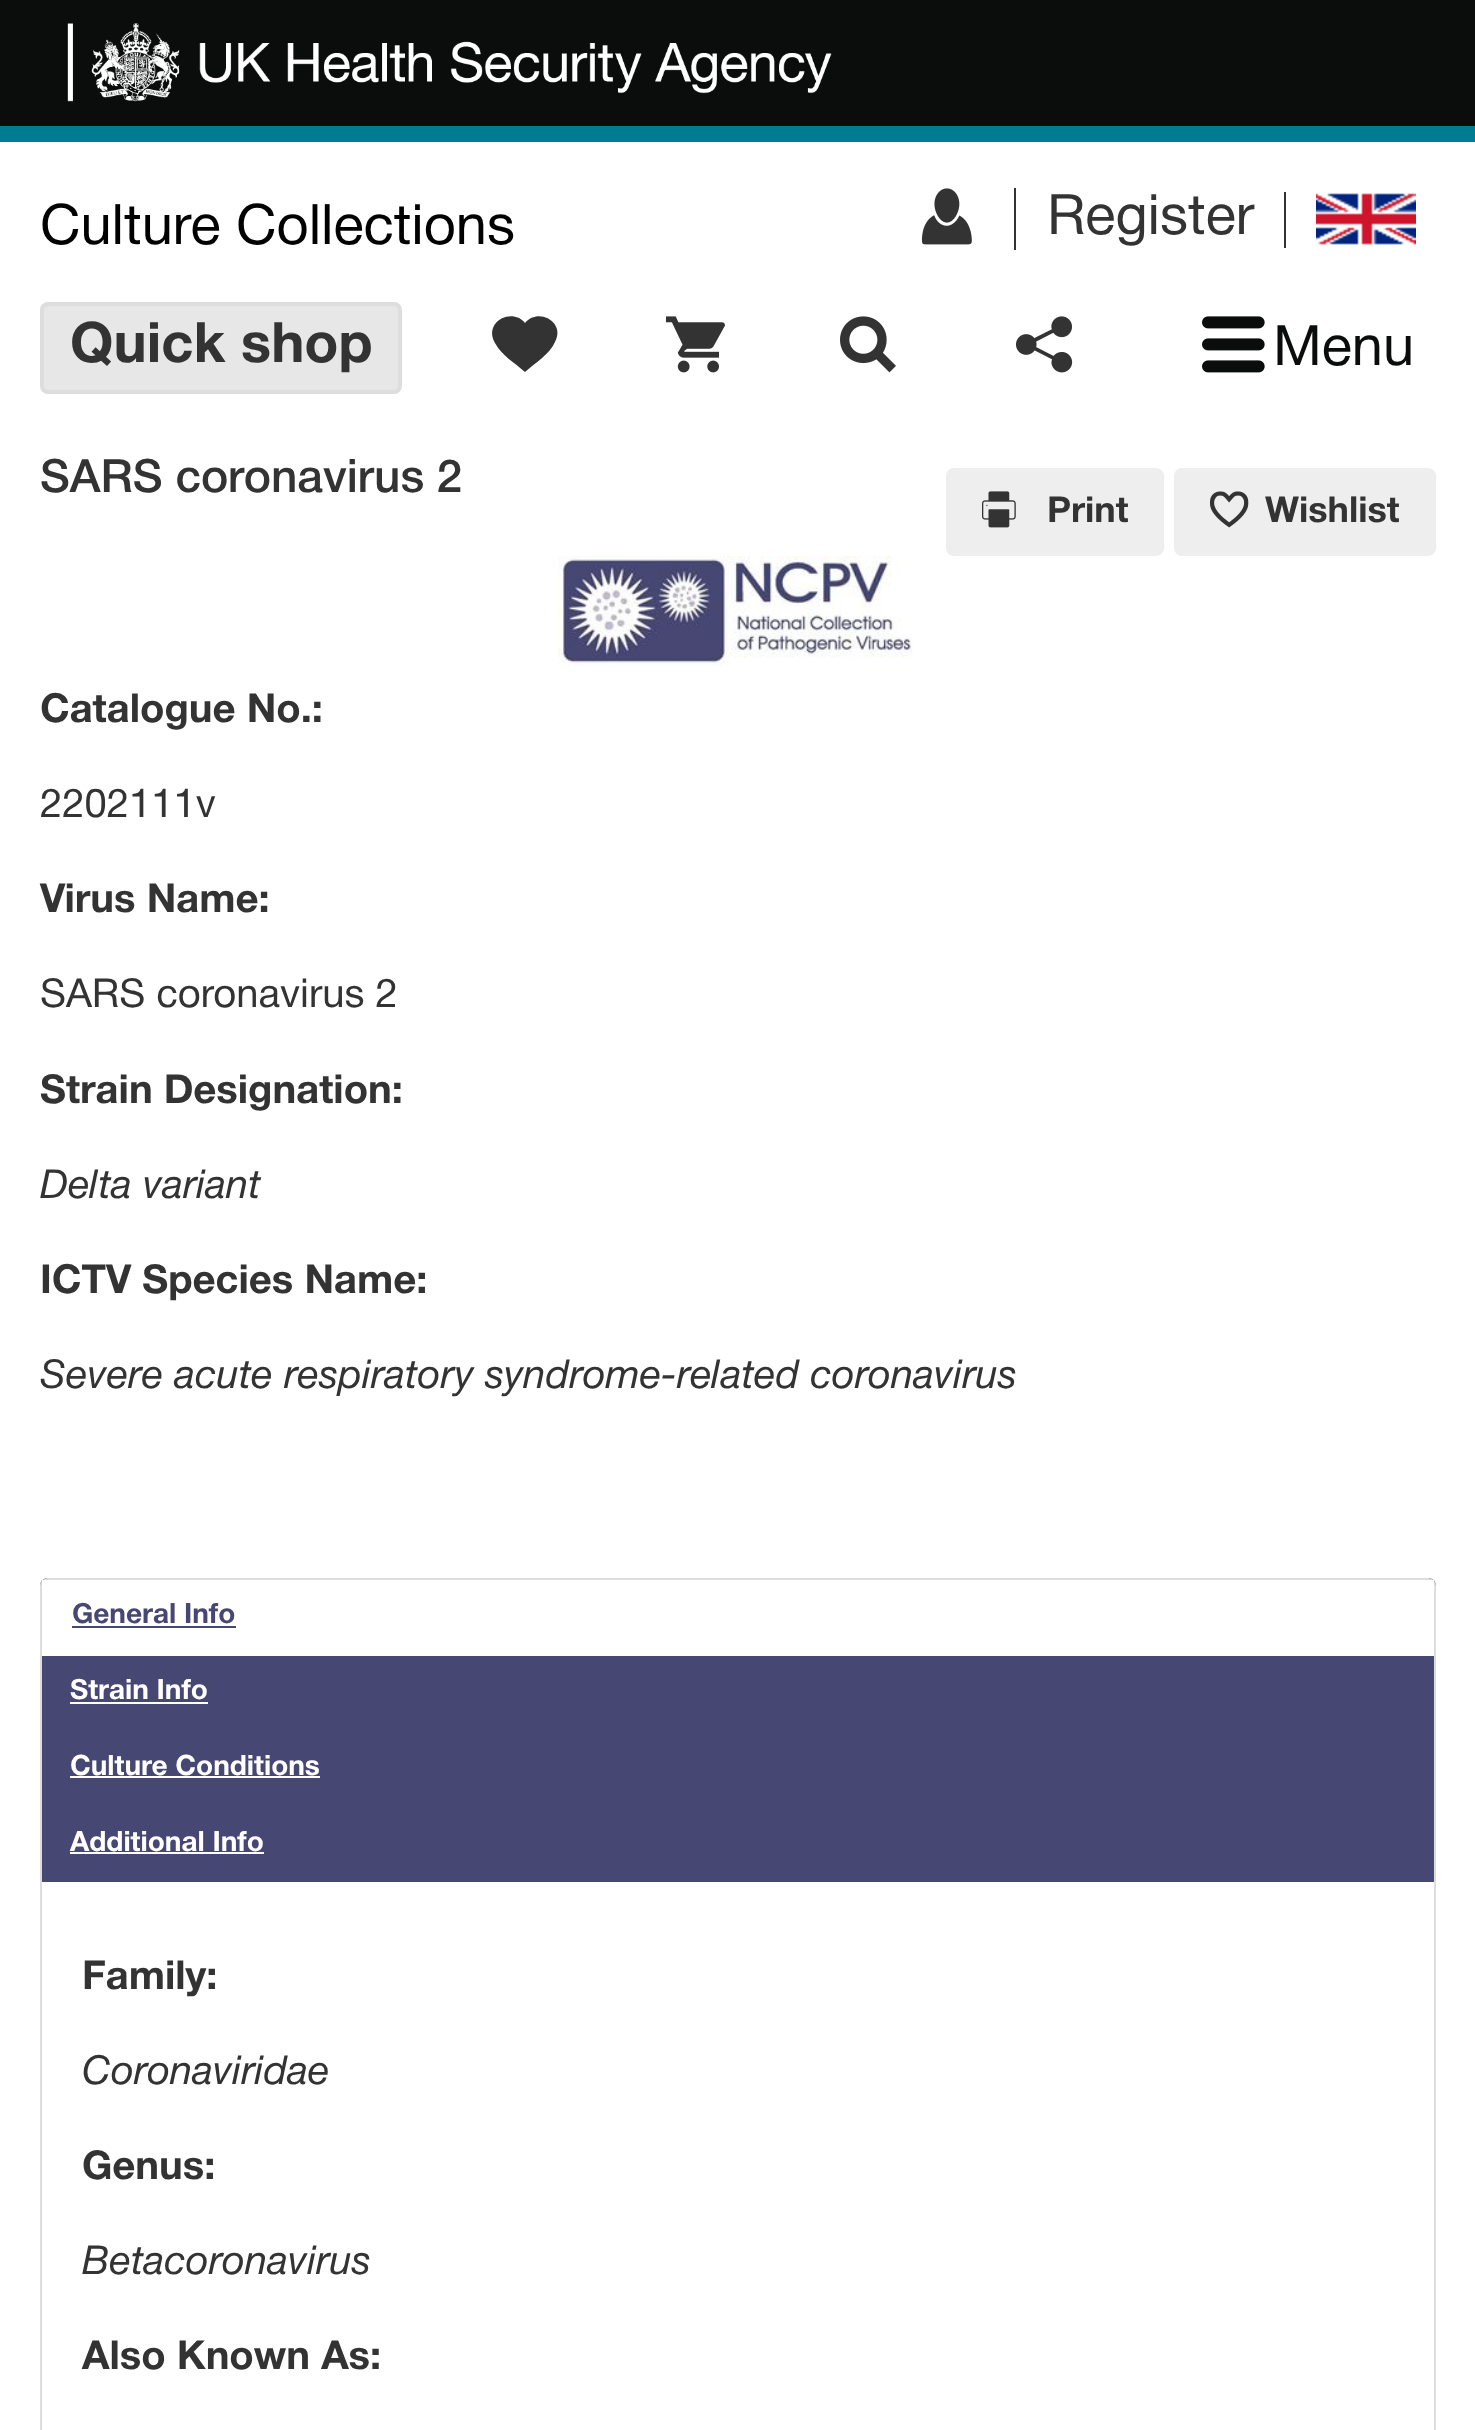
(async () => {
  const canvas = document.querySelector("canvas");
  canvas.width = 1475;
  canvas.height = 2430;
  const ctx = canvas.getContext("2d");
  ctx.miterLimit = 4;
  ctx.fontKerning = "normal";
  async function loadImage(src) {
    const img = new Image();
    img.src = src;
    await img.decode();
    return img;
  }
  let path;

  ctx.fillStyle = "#ffffff";
  ctx.fillRect(0, 0, 1475, 2430);
  ctx.fillStyle = "#007c91";
  ctx.fillRect(0, 126, 1475, 16);
  ctx.fillStyle = "#0b0c0c";
  ctx.fillRect(0, 0, 1475, 126);
  ctx.drawImage(await loadImage("img/1.png"), 67, 23, 765, 79);
  ctx.fillStyle = "#333333";
  ctx.fillRect(1014, 188, 2, 62);
  ctx.drawImage(await loadImage("img/2.png"), 921, 188, 51, 57);
  ctx.fillRect(1284, 192, 2, 56);
  ctx.drawImage(await loadImage("img/3.png"), 1316, 193, 100, 52);
  ctx.fillStyle = "#e7e7e7";
  ctx.beginPath();
  ctx.roundRect(42, 304, 358, 88, 6);
  ctx.fill();
  ctx.strokeStyle = "#dddddd";
  ctx.lineWidth = 4;
  ctx.stroke();
  ctx.fillStyle = "#333333";
  path = new Path2D("M525 372C515 363 501 355 495 343C483 322 512 307 525 323C538 307 566 322 555 342C549 355 535 363 525 372Z");
  ctx.fill(path);
  ctx.drawImage(await loadImage("img/4.png"), 666, 316, 59, 57);
  ctx.drawImage(await loadImage("img/5.png"), 840, 316, 56, 57);
  ctx.drawImage(await loadImage("img/6.png"), 1016, 316, 57, 57);
  ctx.drawImage(await loadImage("img/7.png"), 1202, 316, 63, 57);
  ctx.fillStyle = "#eeeeee";
  ctx.beginPath();
  ctx.roundRect(946, 468, 218, 88, 8);
  ctx.fill();
  ctx.drawImage(await loadImage("img/8.png"), 982, 491, 34, 37);
  ctx.beginPath();
  ctx.roundRect(1174, 468, 262, 88, 8);
  ctx.fill();
  ctx.drawImage(await loadImage("img/9.png"), 1210, 491, 39, 37);
  ctx.drawImage(await loadImage("img/10.png"), 558, 556, 355, 110);
  ctx.fillStyle = "#464772";
  ctx.beginPath();
  ctx.roundRect(40, 1578, 1396, 304, [8, 8, 0, 0]);
  ctx.fill();
  ctx.fillStyle = "#dddddd";
  path = new Path2D("M48 1578H1428C1432 1578 1436 1582 1436 1586V1882H40V1586C40 1582 44 1578 48 1578ZM48 1580H1428C1431 1580 1434 1583 1434 1586V1882H42V1586C42 1583 45 1580 48 1580Z");
  ctx.fill(path, "evenodd");
  for (const [x, y, w, h, color] of [
    [42, 1580, 1392, 76, "#ffffff"],
    [72, 1626, 164, 2, "#464772"],
    [70, 1702, 138, 2, "#ffffff"],
    [70, 1776, 250, 2, "#ffffff"],
    [70, 1852, 194, 2, "#ffffff"],
  ]) {
    ctx.fillStyle = color;
    ctx.fillRect(x, y, w, h);
  }
  ctx.fillStyle = "#dddddd";
  path = new Path2D("M40 1882H1436V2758C1436 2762 1432 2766 1428 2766H48C44 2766 40 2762 40 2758ZM42 1882H1434V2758C1434 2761 1431 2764 1428 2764H48C45 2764 42 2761 42 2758Z");
  ctx.fill(path, "evenodd");
  ctx.font = "56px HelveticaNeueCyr";
  ctx.fillStyle = "#333333";
  ctx.fillText("Register", 1047, 234);
  ctx.font = "bold 56px HelveticaNeueCyr";
  ctx.fillText("Quick shop", 70, 362);
  ctx.font = "56px HelveticaNeueCyr";
  ctx.fillStyle = "#000000";
  ctx.fillText("Culture Collections", 40, 244);
  ctx.fillStyle = "#0b0c0c";
  ctx.fillText("Menu", 1273, 365);
  ctx.font = "500 46px HelveticaNeueCyr";
  ctx.fillStyle = "#333333";
  ctx.fillText("SARS coronavirus 2", 40, 492);
  ctx.font = "bold 36px HelveticaNeueCyr";
  ctx.fillText("Print", 1047, 522);
  ctx.fillText("Wishlist", 1265, 522);
  ctx.font = "bold 40px HelveticaNeueCyr";
  ctx.fillText("Catalogue No.:", 40, 722);
  ctx.font = "40px HelveticaNeueCyr";
  ctx.fillText("2202111v", 40, 817);
  ctx.font = "bold 40px HelveticaNeueCyr";
  ctx.fillText("Virus Name:", 40, 912);
  ctx.font = "40px HelveticaNeueCyr";
  ctx.fillText("SARS coronavirus 2", 40, 1007);
  ctx.font = "bold 40px HelveticaNeueCyr";
  ctx.fillText("Strain Designation:", 40, 1103);
  ctx.font = "italic 500 40px HelveticaNeueCyr";
  ctx.fillText("Delta variant", 40, 1198);
  ctx.font = "bold 40px HelveticaNeueCyr";
  ctx.fillText("ICTV Species Name:", 40, 1293);
  ctx.font = "italic 500 40px HelveticaNeueCyr";
  ctx.fillText("Severe acute respiratory syndrome-related coronavirus", 40, 1388);
  ctx.font = "bold 28px HelveticaNeueCyr";
  ctx.fillStyle = "#464772";
  ctx.fillText("General Info", 72, 1623);
  ctx.fillStyle = "#ffffff";
  for (const [text, x, y] of [
    ["Strain Info", 70, 1699],
    ["Culture Conditions", 70, 1775],
    ["Additional Info", 70, 1851],
  ]) {
    ctx.fillText(text, x, y);
  }
  ctx.font = "bold 40px HelveticaNeueCyr";
  ctx.fillStyle = "#333333";
  ctx.fillText("Family:", 82, 1989);
  ctx.font = "italic 500 40px HelveticaNeueCyr";
  ctx.fillText("Coronaviridae", 82, 2084);
  ctx.font = "bold 40px HelveticaNeueCyr";
  ctx.fillText("Genus:", 82, 2179);
  ctx.font = "italic 500 40px HelveticaNeueCyr";
  ctx.fillText("Betacoronavirus", 82, 2274);
  ctx.font = "bold 40px HelveticaNeueCyr";
  ctx.fillText("Also Known As:", 82, 2369);
})();
